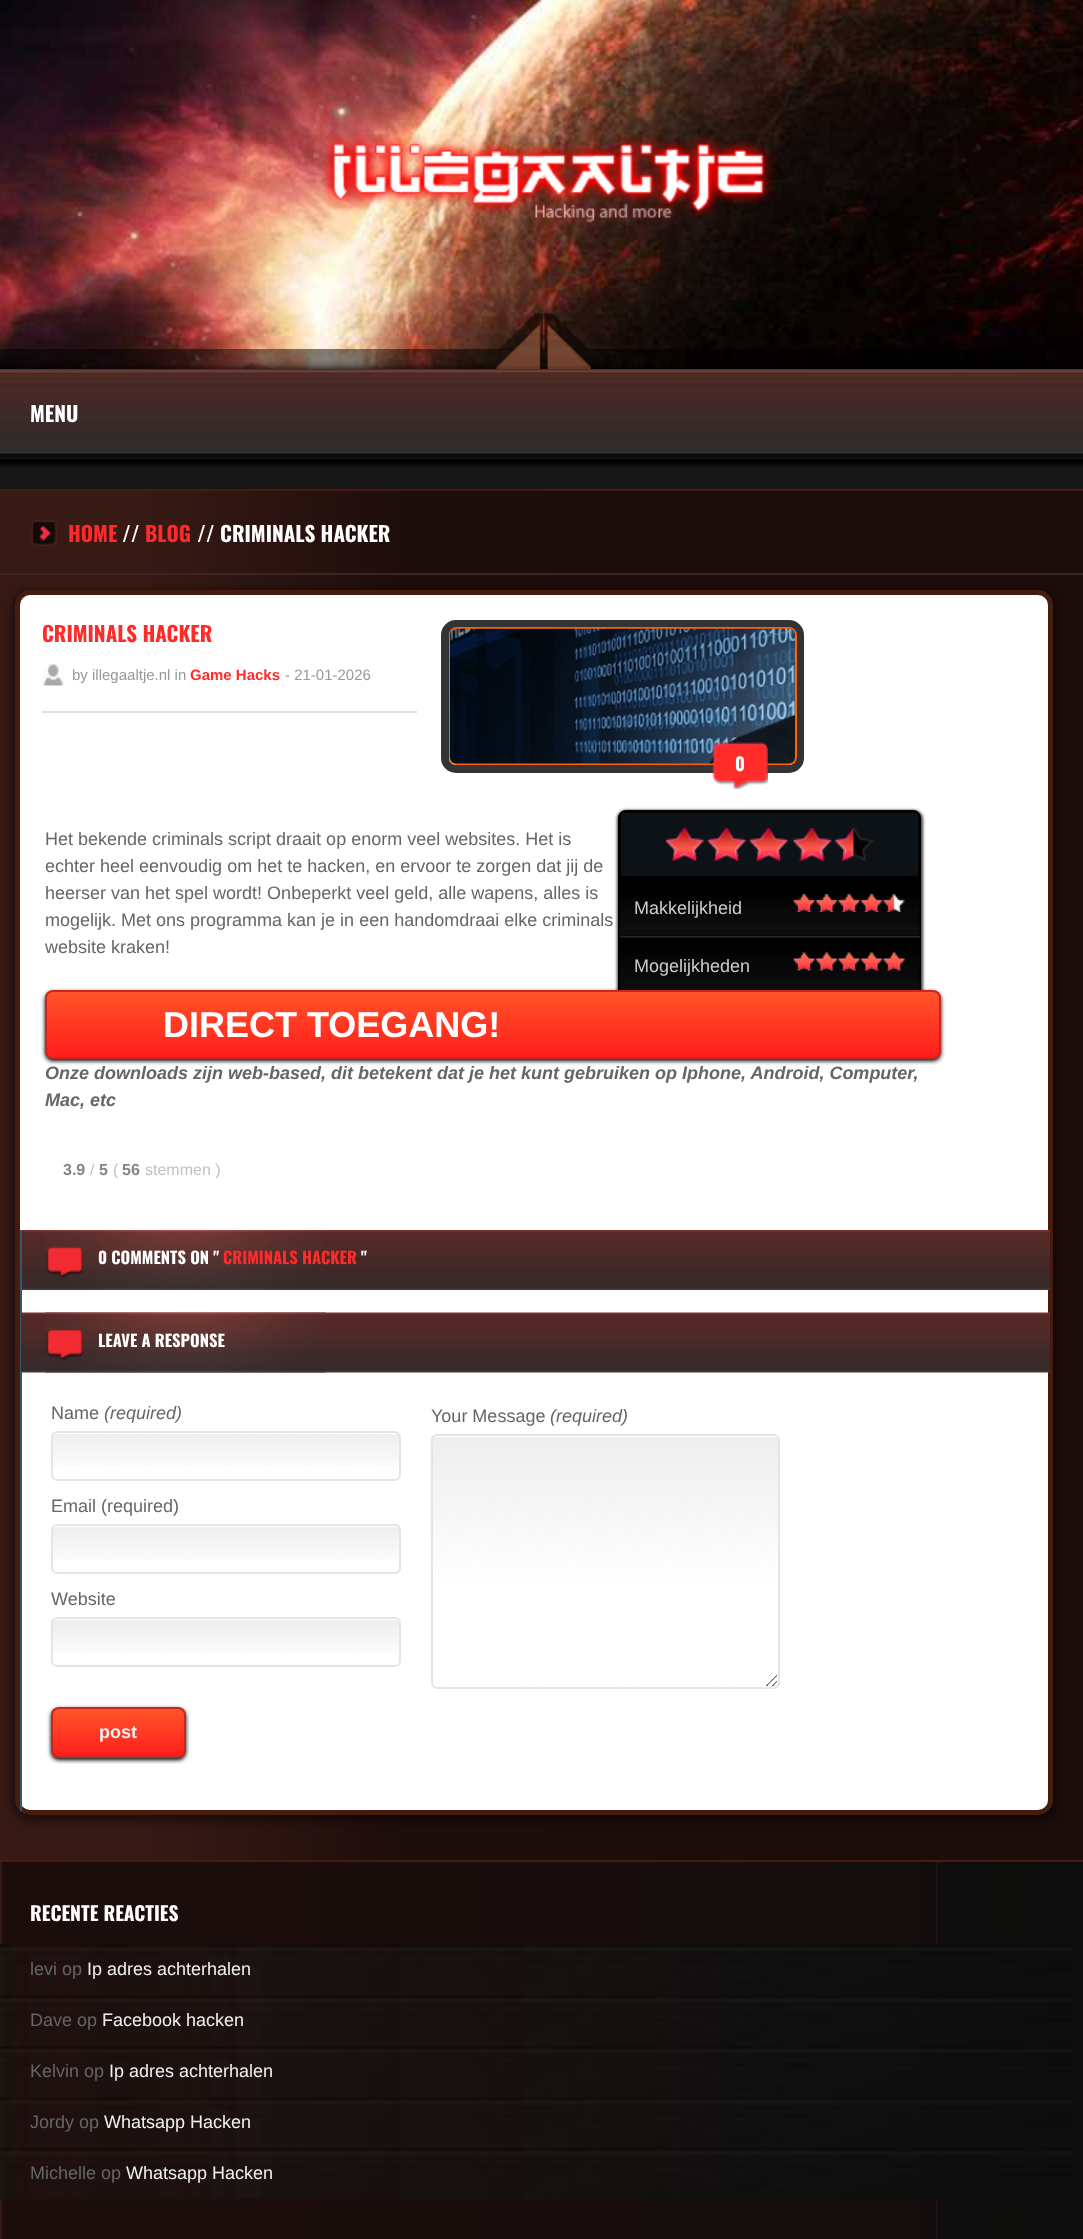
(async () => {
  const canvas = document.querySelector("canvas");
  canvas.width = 1083;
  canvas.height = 2239;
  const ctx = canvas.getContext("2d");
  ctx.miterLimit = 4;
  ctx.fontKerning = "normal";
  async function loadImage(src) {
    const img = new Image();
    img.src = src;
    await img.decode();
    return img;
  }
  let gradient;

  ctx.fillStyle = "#ffffff";
  ctx.fillRect(0, 0, 1083, 2239);
  ctx.drawImage(await loadImage("img/1.png"), 0, 0, 1083, 369);
  ctx.drawImage(await loadImage("img/2.png"), 322, 134, 452, 90);
  ctx.fillStyle = "rgba(0, 0, 0, 0.49)";
  ctx.fillRect(0, 349, 1046, 20);
  ctx.fillStyle = "#000000";
  ctx.filter = "blur(4px)";
  ctx.beginPath();
  ctx.rect(0, 369, 1083, 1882);
  ctx.fill();
  ctx.filter = "none";
  ctx.drawImage(await loadImage("img/3.png"), 496, 313, 47, 56);
  ctx.drawImage(await loadImage("img/4.png"), 544, 313, 47, 56);
  ctx.fillStyle = "#171717";
  ctx.fillRect(0, 468, 1083, 21);
  ctx.drawImage(await loadImage("img/5.png"), 0, 369, 1083, 99);
  ctx.drawImage(await loadImage("img/6.png"), 937, 1862, 146, 377);
  ctx.drawImage(await loadImage("img/7.png"), 0, 491, 1083, 1369);
  ctx.fillStyle = "#461c0e";
  ctx.fillRect(0, 489, 1083, 2);
  ctx.fillStyle = "#3c2623";
  ctx.fillRect(0, 573, 1083, 2);
  ctx.drawImage(await loadImage("img/8.png"), 31, 520, 26, 27);
  ctx.fillStyle = "rgba(0, 0, 0, 0.5)";
  ctx.filter = "blur(4px)";
  ctx.beginPath();
  ctx.roundRect(12, 590, 1044, 1231, 18);
  ctx.fill();
  ctx.filter = "none";
  ctx.fillStyle = "#ffffff";
  ctx.beginPath();
  ctx.roundRect(17.5, 592.5, 1033, 1220, 12.5);
  ctx.fill();
  ctx.strokeStyle = "#461c0e";
  ctx.lineWidth = 5;
  ctx.stroke();
  ctx.fillStyle = "#e0e0e0";
  ctx.fillRect(42, 711, 375, 2);
  ctx.drawImage(await loadImage("img/9.png"), 42, 663, 22, 23);
  ctx.beginPath();
  ctx.roundRect(445, 624, 355, 145, 11);
  ctx.strokeStyle = "#333333";
  ctx.lineWidth = 8;
  ctx.stroke();
  ctx.beginPath();
  ctx.roundRect(450, 628, 346, 136, 7);
  ctx.strokeStyle = "#ff6000";
  ctx.lineWidth = 2;
  ctx.stroke();
  ctx.drawImage(await loadImage("img/10.png"), 450, 628, 345, 136);
  ctx.drawImage(await loadImage("img/11.png"), 712, 742, 56, 47);
  ctx.fillStyle = "rgba(0, 0, 0, 0.75)";
  ctx.filter = "blur(1.5px)";
  ctx.beginPath();
  ctx.roundRect(617, 810, 306, 191, 9);
  ctx.fill();
  ctx.filter = "none";
  ctx.fillStyle = "#000000";
  ctx.beginPath();
  ctx.roundRect(619, 811, 301, 186, 7);
  ctx.fill();
  ctx.strokeStyle = "#000000";
  ctx.stroke();
  ctx.fillStyle = "#0c1215";
  ctx.fillRect(621, 813, 297, 63);
  ctx.drawImage(await loadImage("img/12.png"), 666, 828, 207, 33);
  ctx.drawImage(await loadImage("img/13.png"), 619, 897, 301, 40);
  ctx.fillStyle = "#282828";
  ctx.fillRect(620, 936, 300, 2);
  ctx.drawImage(await loadImage("img/14.png"), 793, 894, 112, 18);
  ctx.drawImage(await loadImage("img/15.png"), 619, 937, 301, 53);
  ctx.drawImage(await loadImage("img/16.png"), 793, 952, 112, 19);
  ctx.fillStyle = "#000000";
  ctx.filter = "blur(2px)";
  ctx.beginPath();
  ctx.roundRect(45, 992, 896, 69, 8);
  ctx.fill();
  ctx.filter = "none";
  ctx.save();
  ctx.beginPath();
  ctx.roundRect(45, 990, 896, 69, 8);
  ctx.clip();
  gradient = ctx.createLinearGradient(493, 992, 493, 1058);
  gradient.addColorStop(0, "#ff5429");
  gradient.addColorStop(1, "#ff1d1c");
  ctx.fillStyle = gradient;
  ctx.fillRect(45, 992, 896, 66);
  ctx.restore();
  ctx.beginPath();
  ctx.roundRect(46, 991, 894, 67, 7);
  ctx.strokeStyle = "#c8271f";
  ctx.stroke();
  ctx.drawImage(await loadImage("img/17.png"), 19, 1230, 1031, 60);
  ctx.fillStyle = "#315972";
  ctx.fillRect(20, 1230, 2, 581);
  ctx.drawImage(await loadImage("img/18.png"), 45, 1230, 280, 60);
  ctx.drawImage(await loadImage("img/19.png"), 21, 1312, 1029, 61);
  ctx.drawImage(await loadImage("img/20.png"), 45, 1312, 281, 61);
  ctx.drawImage(await loadImage("img/21.png"), 51, 1434, 350, 33);
  ctx.beginPath();
  ctx.roundRect(52, 1432, 348, 48, 5);
  ctx.strokeStyle = "#e5e5e5";
  ctx.stroke();
  ctx.drawImage(await loadImage("img/21.png"), 51, 1527, 350, 33);
  ctx.beginPath();
  ctx.roundRect(52, 1525, 348, 48, 5);
  ctx.stroke();
  ctx.drawImage(await loadImage("img/21.png"), 51, 1620, 350, 33);
  ctx.beginPath();
  ctx.roundRect(52, 1618, 348, 48, 5);
  ctx.stroke();
  ctx.drawImage(await loadImage("img/22.png"), 430, 1437, 350, 249);
  ctx.beginPath();
  ctx.roundRect(432, 1435, 347, 253, 5);
  ctx.stroke();
  ctx.fillStyle = "#000000";
  ctx.filter = "blur(2px)";
  ctx.beginPath();
  ctx.roundRect(51, 1709, 135, 51, 8);
  ctx.fill();
  ctx.filter = "none";
  ctx.save();
  ctx.beginPath();
  ctx.roundRect(51, 1707, 135, 51, 8);
  ctx.clip();
  gradient = ctx.createLinearGradient(119, 1709, 119, 1757);
  gradient.addColorStop(0, "#ff5429");
  gradient.addColorStop(1, "#ff1d1c");
  ctx.fillStyle = gradient;
  ctx.fillRect(51, 1709, 135, 48);
  ctx.restore();
  ctx.beginPath();
  ctx.roundRect(52, 1708, 133, 49, 7);
  ctx.strokeStyle = "#c8271f";
  ctx.stroke();
  ctx.drawImage(await loadImage("img/23.png"), 0, 1862, 938, 377);
  ctx.fillStyle = "#461c0e";
  ctx.fillRect(0, 1860, 1083, 2);
  ctx.drawImage(await loadImage("img/24.png"), 0, 1944, 1073, 51);
  ctx.drawImage(await loadImage("img/24.png"), 0, 1995, 1073, 51);
  ctx.drawImage(await loadImage("img/24.png"), 0, 2046, 1073, 51);
  ctx.drawImage(await loadImage("img/24.png"), 0, 2097, 1073, 51);
  ctx.drawImage(await loadImage("img/24.png"), 0, 2148, 1073, 51);
  ctx.font = "bold 21px Oswald";
  ctx.fillStyle = "#ffffff";
  ctx.fillText("MENU", 30, 422);
  ctx.fillStyle = "#ff2a2a";
  ctx.fillText("HOME", 68, 542);
  ctx.fillStyle = "#ffffff";
  ctx.fillText("//", 122, 542);
  ctx.fillStyle = "#ff2a2a";
  ctx.fillText("BLOG", 145, 542);
  ctx.fillStyle = "#ffffff";
  ctx.fillText("// CRIMINALS HACKER", 197, 542);
  ctx.fillStyle = "#ff2a2a";
  ctx.fillText("CRIMINALS HACKER", 42, 642);
  ctx.font = "15px Liberation Sans";
  ctx.fillStyle = "#999999";
  ctx.fillText("by illegaaltje.nl in", 72, 680);
  ctx.font = "bold 15px Liberation Sans";
  ctx.fillStyle = "#ff2a2a";
  ctx.fillText("Game Hacks", 190, 680);
  ctx.font = "15px Liberation Sans";
  ctx.fillStyle = "#999999";
  ctx.fillText("- 21-01-2026", 285, 680);
  ctx.font = "bold 18px Oswald";
  ctx.fillStyle = "#ffffff";
  ctx.fillText("0", 735, 771);
  ctx.font = "18px Liberation Sans";
  ctx.fillStyle = "#666666";
  for (const [text, x, y] of [
    ["Het bekende criminals script draait op enorm veel websites. Het is", 45, 845],
    ["echter heel eenvoudig om het te hacken, en ervoor te zorgen dat jij de", 45, 872],
    ["heerser van het spel wordt! Onbeperkt veel geld, alle wapens, alles is", 45, 899],
    ["mogelijk. Met ons programma kan je in een handomdraai elke criminals", 45, 926],
    ["website kraken!", 45, 953],
  ]) {
    ctx.fillText(text, x, y);
  }
  ctx.fillStyle = "#cccccc";
  ctx.fillText("Makkelijkheid", 634, 914);
  ctx.fillText("Mogelijkheden", 634, 972);
  ctx.font = "bold 36px Liberation Sans";
  ctx.fillStyle = "#ffffff";
  ctx.fillText("DIRECT TOEGANG!", 163, 1037);
  ctx.font = "italic bold 18px Liberation Sans";
  ctx.fillStyle = "#666666";
  ctx.fillText("Onze downloads zijn web-based, dit betekent dat je het kunt gebruiken op Iphone, Android, Computer,", 45, 1079);
  ctx.fillText("Mac, etc", 45, 1106);
  ctx.font = "bold 16px Liberation Sans";
  ctx.fillStyle = "#858585";
  ctx.fillText("3.9", 63, 1175);
  ctx.font = "16px Liberation Sans";
  ctx.fillStyle = "#c2c2c2";
  ctx.fillText("/", 90, 1175);
  ctx.font = "bold 16px Liberation Sans";
  ctx.fillStyle = "#858585";
  ctx.fillText("5", 99, 1175);
  ctx.font = "16px Liberation Sans";
  ctx.fillStyle = "#c2c2c2";
  ctx.fillText("(", 113, 1175);
  ctx.font = "bold 16px Liberation Sans";
  ctx.fillStyle = "#858585";
  ctx.fillText("56", 122, 1175);
  ctx.font = "16px Liberation Sans";
  ctx.fillStyle = "#c2c2c2";
  ctx.fillText("stemmen )", 145, 1175);
  ctx.font = "bold 16.5px Oswald";
  ctx.fillStyle = "#ffffff";
  ctx.fillText("0 COMMENTS ON \"", 98, 1264);
  ctx.fillStyle = "#ff2a2a";
  ctx.fillText("CRIMINALS HACKER", 223, 1264);
  ctx.fillStyle = "#ffffff";
  ctx.fillText("\"", 361, 1264);
  ctx.fillText("LEAVE A RESPONSE", 98, 1347);
  ctx.font = "18px Liberation Sans";
  ctx.fillStyle = "#666666";
  ctx.fillText("Name", 51, 1419);
  ctx.font = "italic 18px Liberation Sans";
  ctx.fillText("(required)", 104, 1419);
  ctx.font = "18px Liberation Sans";
  for (const [text, x, y] of [
    ["Email (required)", 51, 1512],
    ["Website", 51, 1605],
    ["Your Message", 431, 1422],
  ]) {
    ctx.fillText(text, x, y);
  }
  ctx.font = "italic 18px Liberation Sans";
  ctx.fillText("(required)", 550, 1422);
  ctx.font = "bold 18px Liberation Sans";
  ctx.fillStyle = "#f1f1f1";
  ctx.fillText("post", 99, 1738);
  ctx.font = "bold 19.5px Oswald";
  ctx.fillStyle = "#ffffff";
  ctx.fillText("RECENTE REACTIES", 30, 1921);
  ctx.font = "18px Liberation Sans";
  ctx.fillStyle = "#666666";
  ctx.fillText("levi op", 30, 1975);
  ctx.fillStyle = "#f1f1f1";
  ctx.fillText("Ip adres achterhalen", 87, 1975);
  ctx.fillStyle = "#666666";
  ctx.fillText("Dave op", 30, 2026);
  ctx.fillStyle = "#f1f1f1";
  ctx.fillText("Facebook hacken", 102, 2026);
  ctx.fillStyle = "#666666";
  ctx.fillText("Kelvin op", 30, 2077);
  ctx.fillStyle = "#f1f1f1";
  ctx.fillText("Ip adres achterhalen", 109, 2077);
  ctx.fillStyle = "#666666";
  ctx.fillText("Jordy op", 30, 2128);
  ctx.fillStyle = "#f1f1f1";
  ctx.fillText("Whatsapp Hacken", 104, 2128);
  ctx.fillStyle = "#666666";
  ctx.fillText("Michelle op", 30, 2179);
  ctx.fillStyle = "#f1f1f1";
  ctx.fillText("Whatsapp Hacken", 126, 2179);
})();
